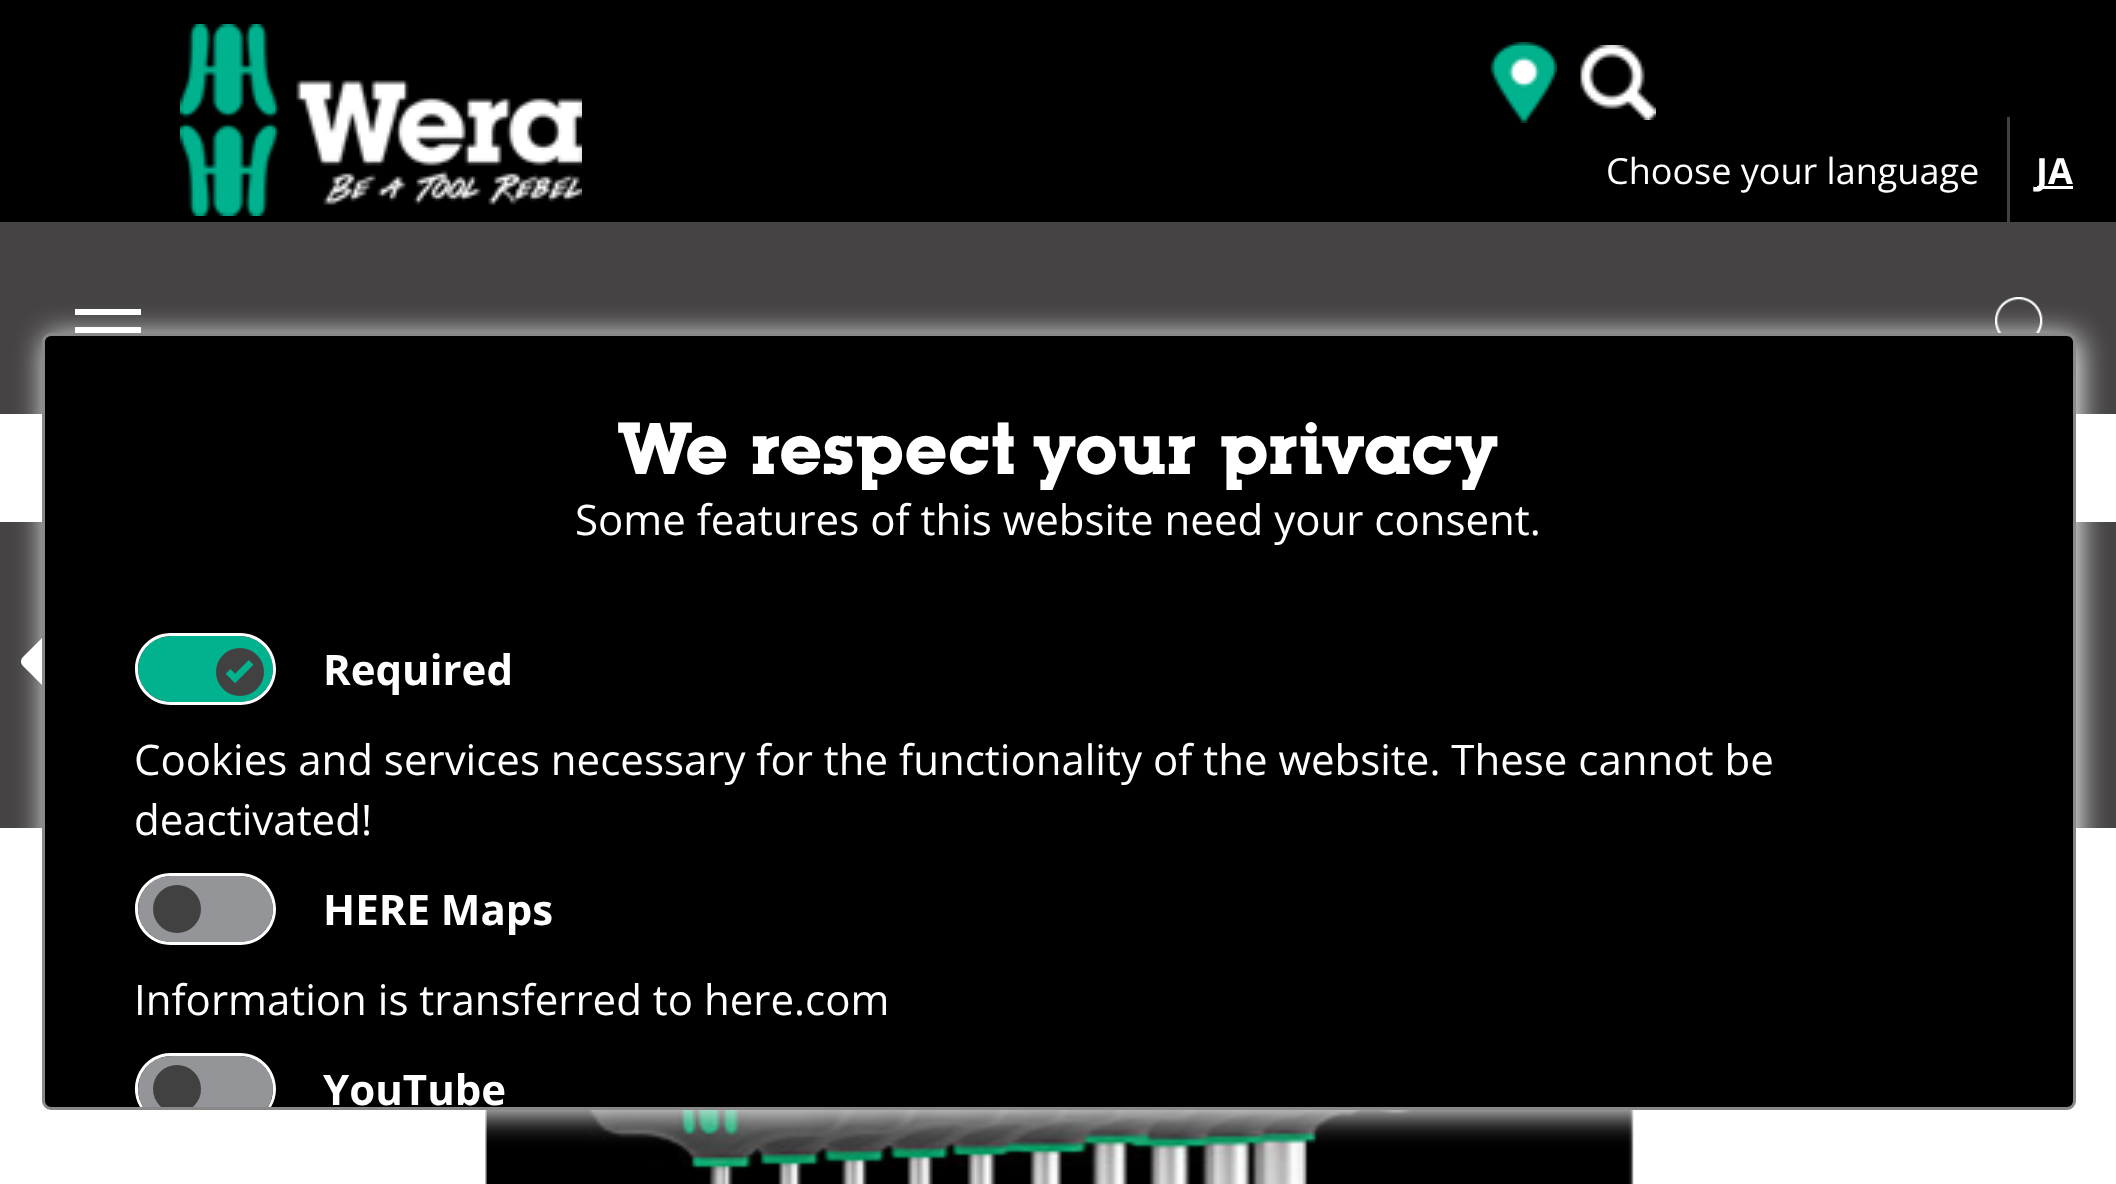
(async () => {
  const canvas = document.querySelector("canvas");
  canvas.width = 2116;
  canvas.height = 1184;
  const ctx = canvas.getContext("2d");
  ctx.miterLimit = 4;
  ctx.fontKerning = "normal";
  async function loadImage(src) {
    const img = new Image();
    img.src = src;
    await img.decode();
    return img;
  }
  let path;

  ctx.fillStyle = "#000000";
  ctx.fillRect(0, 0, 2116, 1184);
  ctx.drawImage(await loadImage("img/1.png"), 180, 24, 402, 192);
  ctx.drawImage(await loadImage("img/2.png"), 1490, 42, 67, 81);
  ctx.drawImage(await loadImage("img/3.png"), 1580, 45, 76, 75);
  for (const [x, y, w, h, color] of [
    [2007, 117, 3, 105, "#414141"],
    [2037, 186, 36, 3, "#ffffff"],
    [0, 222, 2116, 192, "#454344"],
    [75, 309, 66, 6, "#ffffff"],
    [75, 327, 66, 6, "#ffffff"],
  ]) {
    ctx.fillStyle = color;
    ctx.fillRect(x, y, w, h);
  }
  ctx.drawImage(await loadImage("img/4.png"), 1995, 297, 48, 36);
  ctx.fillRect(0, 414, 2116, 770);
  ctx.fillStyle = "#454344";
  ctx.fillRect(0, 522, 2116, 306);
  ctx.drawImage(await loadImage("img/5.png"), 21, 638, 21, 47);
  ctx.drawImage(await loadImage("img/6.png"), 485, 1110, 1149, 74);
  ctx.fillStyle = "#ffffff";
  ctx.filter = "blur(15px)";
  ctx.beginPath();
  ctx.roundRect(45, 336, 2034, 777, 9);
  ctx.fill();
  ctx.filter = "none";
  ctx.fillStyle = "#000000";
  ctx.beginPath();
  ctx.roundRect(43.5, 334.5, 2031, 774, 7.5);
  ctx.fill();
  ctx.strokeStyle = "#888888";
  ctx.lineWidth = 3;
  ctx.stroke();
  ctx.fillStyle = "#00b28d";
  ctx.beginPath();
  ctx.roundRect(138, 636, 69, 66, [33, 0, 0, 33]);
  ctx.fill();
  ctx.fillStyle = "#ffffff";
  path = new Path2D("M171 633H207V705H171C151 705 135 689 135 669C135 649 151 633 171 633ZM171 636H207V702H171C153 702 138 687 138 669C138 651 153 636 171 636Z");
  ctx.fill(path, "evenodd");
  ctx.fillStyle = "#00b28d";
  ctx.beginPath();
  ctx.roundRect(204, 636, 69, 66, [0, 33, 33, 0]);
  ctx.fill();
  ctx.fillStyle = "#ffffff";
  path = new Path2D("M204 633H240C260 633 276 649 276 669C276 689 260 705 240 705H204ZM204 636H240C258 636 273 651 273 669C273 687 258 702 240 702H204Z");
  ctx.fill(path, "evenodd");
  ctx.fillStyle = "#414141";
  ctx.beginPath();
  ctx.arc(240, 672, 24, 0, Math.PI * 2);
  ctx.fill();
  ctx.drawImage(await loadImage("img/7.png"), 225, 660, 29, 23);
  ctx.fillStyle = "#939598";
  ctx.beginPath();
  ctx.roundRect(204, 876, 69, 66, [0, 33, 33, 0]);
  ctx.fill();
  ctx.fillStyle = "#ffffff";
  path = new Path2D("M204 873H240C260 873 276 889 276 909C276 929 260 945 240 945H204ZM204 876H240C258 876 273 891 273 909C273 927 258 942 240 942H204Z");
  ctx.fill(path, "evenodd");
  ctx.fillStyle = "#939598";
  ctx.beginPath();
  ctx.roundRect(138, 876, 69, 66, [33, 0, 0, 33]);
  ctx.fill();
  ctx.fillStyle = "#ffffff";
  path = new Path2D("M171 873H207V945H171C151 945 135 929 135 909C135 889 151 873 171 873ZM171 876H207V942H171C153 942 138 927 138 909C138 891 153 876 171 876Z");
  ctx.fill(path, "evenodd");
  ctx.fillStyle = "#414141";
  ctx.beginPath();
  ctx.arc(177, 909, 24, 0, Math.PI * 2);
  ctx.fill();
  ctx.save();
  ctx.beginPath();
  ctx.roundRect(45, 336, 2028, 771, 6);
  ctx.clip();
  ctx.fillStyle = "#939598";
  ctx.beginPath();
  ctx.roundRect(204, 1056, 69, 66, [0, 33, 33, 0]);
  ctx.fill();
  ctx.restore();
  ctx.fillStyle = "#ffffff";
  path = new Path2D("M204 1053H240C260 1053 276 1069 276 1089C276 1096 274 1102 271 1107H268C271 1102 273 1096 273 1089C273 1071 258 1056 240 1056H204Z");
  ctx.fill(path);
  ctx.save();
  ctx.beginPath();
  ctx.roundRect(45, 336, 2028, 771, 6);
  ctx.clip();
  ctx.fillStyle = "#939598";
  ctx.beginPath();
  ctx.roundRect(138, 1056, 69, 66, [33, 0, 0, 33]);
  ctx.fill();
  ctx.restore();
  path = new Path2D("M171 1053H207V1056H171C153 1056 138 1071 138 1089C138 1096 140 1102 143 1107H140C126 1083 143 1053 171 1053Z");
  ctx.fill(path);
  ctx.save();
  ctx.beginPath();
  ctx.roundRect(45, 336, 2028, 771, 6);
  ctx.clip();
  ctx.fillStyle = "#414141";
  ctx.beginPath();
  ctx.arc(177, 1089, 24, 0, Math.PI * 2);
  ctx.fill();
  ctx.restore();
  ctx.font = "36px Open Sans";
  ctx.fillText("Choose your language", 1606, 184);
  ctx.font = "bold 36px Open Sans";
  ctx.fillText("JA", 2036, 184);
  ctx.font = "bold 72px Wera";
  ctx.fillText("We respect your privacy", 616, 474);
  ctx.font = "42px Open Sans";
  ctx.fillText("Some features of this website need your consent.", 575, 535);
  ctx.font = "bold 42px Open Sans";
  ctx.fillText("Required", 323, 685);
  ctx.font = "42px Open Sans";
  ctx.fillText("Cookies and services necessary for the functionality of the website. These cannot be", 134, 775);
  ctx.fillText("deactivated!", 134, 835);
  ctx.font = "bold 42px Open Sans";
  ctx.fillText("HERE Maps", 323, 925);
  ctx.font = "42px Open Sans";
  ctx.fillText("Information is transferred to here.com", 134, 1015);
  ctx.font = "bold 42px Open Sans";
  ctx.fillText("YouTube", 323, 1105);
})();
